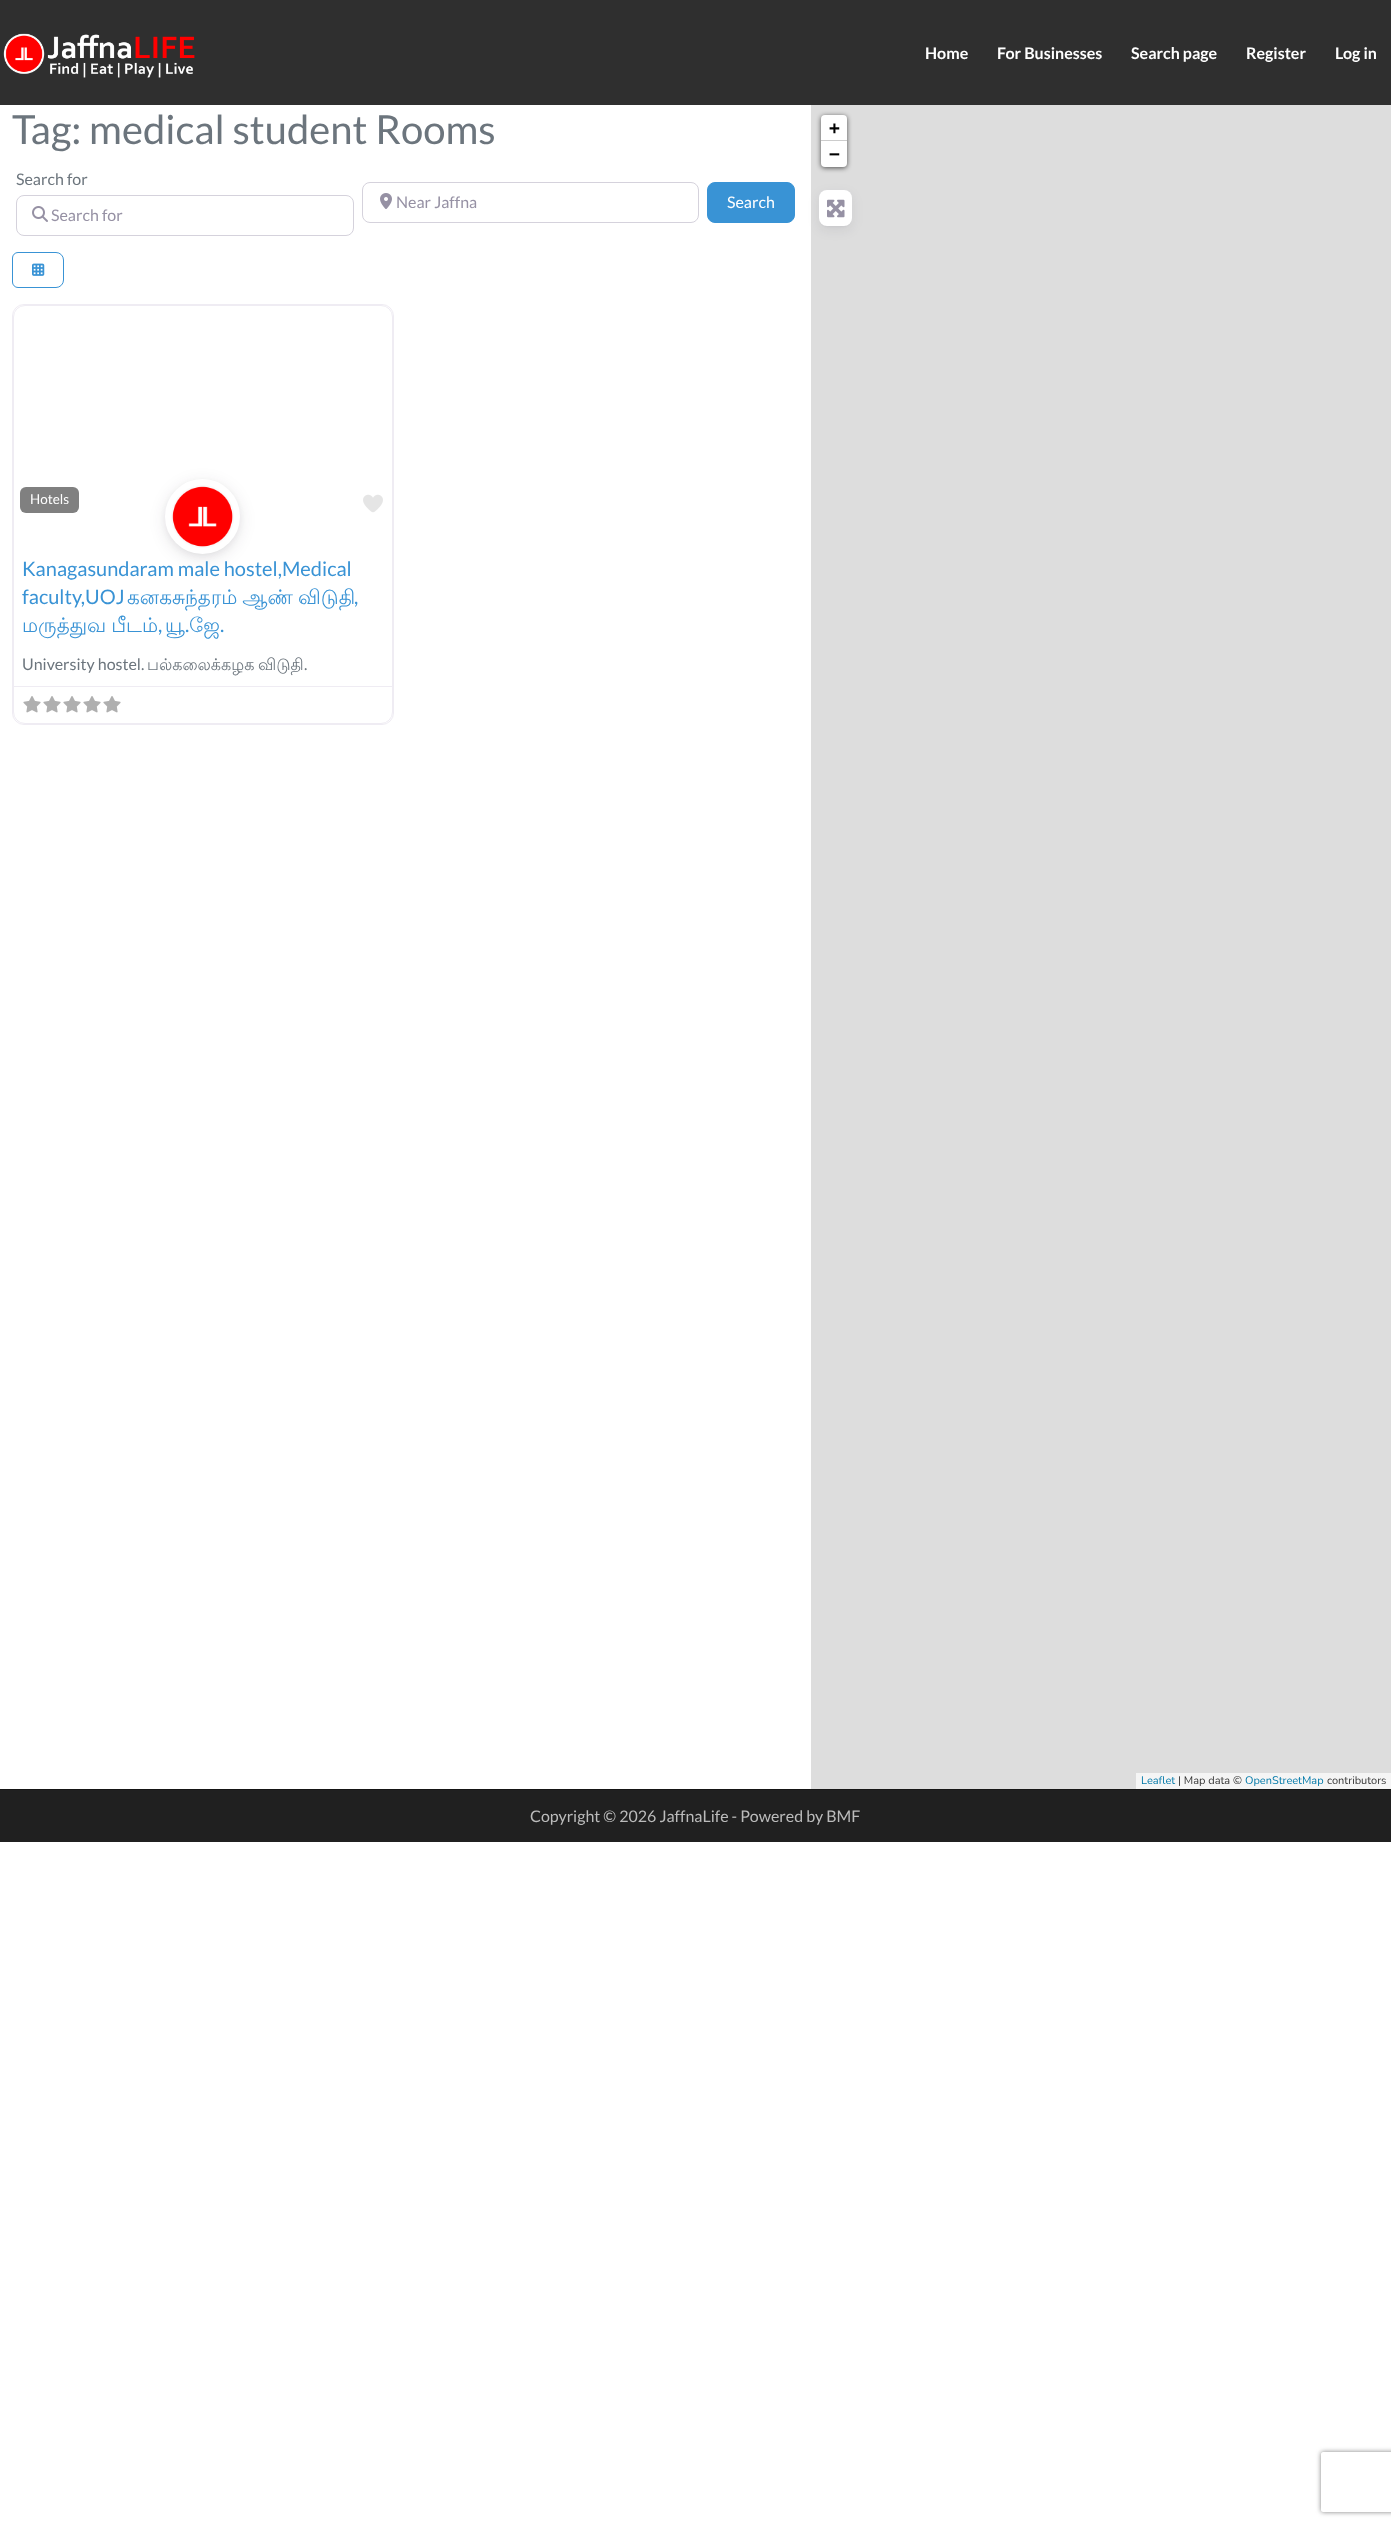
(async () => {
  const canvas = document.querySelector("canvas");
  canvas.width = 1391;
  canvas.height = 2526;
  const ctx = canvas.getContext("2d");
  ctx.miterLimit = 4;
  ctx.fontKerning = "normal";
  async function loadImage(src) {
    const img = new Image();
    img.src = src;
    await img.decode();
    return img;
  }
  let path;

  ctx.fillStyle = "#ffffff";
  ctx.fillRect(0, 0, 1391, 2526);
  ctx.fillStyle = "#2f2f2f";
  ctx.fillRect(0, 0, 1391, 105);
  ctx.drawImage(await loadImage("img/1.png"), 3, 33, 192, 45);
  ctx.beginPath();
  ctx.roundRect(16.5, 195.5, 337, 40, 7.5);
  ctx.strokeStyle = "#d5d2dc";
  ctx.stroke();
  ctx.drawImage(await loadImage("img/2.png"), 32, 206, 16, 16);
  ctx.beginPath();
  ctx.roundRect(362.5, 182.5, 336, 40, 7.5);
  ctx.stroke();
  ctx.drawImage(await loadImage("img/3.png"), 380, 193, 12, 16);
  ctx.fillStyle = "#3993d5";
  ctx.beginPath();
  ctx.roundRect(707.5, 182.5, 87, 40, 7.5);
  ctx.fill();
  ctx.strokeStyle = "#3993d5";
  ctx.stroke();
  ctx.beginPath();
  ctx.roundRect(12.5, 252.5, 51, 35, [5.5, 7.5, 7.5, 5.5]);
  ctx.stroke();
  ctx.drawImage(await loadImage("img/4.png"), 32, 263, 13, 13);
  ctx.beginPath();
  ctx.roundRect(12.5, 304.5, 381, 420, 11.5);
  ctx.strokeStyle = "#efecf3";
  ctx.stroke();
  ctx.beginPath();
  ctx.roundRect(13.5, 305.5, 379, 418, 11.5);
  ctx.stroke();
  ctx.fillStyle = "#808080";
  ctx.beginPath();
  ctx.roundRect(20, 487, 59, 26, 6);
  ctx.fill();
  ctx.drawImage(await loadImage("img/5.png"), 363, 494, 20, 19);
  ctx.fillStyle = "rgba(31, 27, 45, 0.12)";
  ctx.filter = "blur(8px)";
  ctx.beginPath();
  ctx.roundRect(165, 483, 75, 75, 37.5);
  ctx.fill();
  ctx.filter = "none";
  ctx.filter = "blur(4px)";
  ctx.beginPath();
  ctx.roundRect(169, 485, 67, 67, 33.5);
  ctx.fill();
  ctx.filter = "none";
  ctx.fillStyle = "#ffffff";
  ctx.beginPath();
  ctx.arc(202.5, 516.5, 35.5, 0, Math.PI * 2);
  ctx.fill();
  ctx.strokeStyle = "#ffffff";
  ctx.lineWidth = 4;
  ctx.stroke();
  ctx.drawImage(await loadImage("img/6.png"), 171, 485, 63, 63);
  ctx.fillStyle = "#efecf3";
  ctx.fillRect(14, 686, 378, 1);
  ctx.drawImage(await loadImage("img/7.png"), 23, 696, 18, 17);
  ctx.drawImage(await loadImage("img/7.png"), 43, 696, 18, 17);
  ctx.drawImage(await loadImage("img/7.png"), 63, 696, 18, 17);
  ctx.drawImage(await loadImage("img/7.png"), 83, 696, 18, 17);
  ctx.drawImage(await loadImage("img/7.png"), 103, 696, 18, 17);
  ctx.fillStyle = "#dddddd";
  ctx.fillRect(811, 105, 580, 1684);
  ctx.fillStyle = "rgba(0, 0, 0, 0.65)";
  ctx.filter = "blur(2.5px)";
  ctx.beginPath();
  ctx.roundRect(821, 116, 26, 52, 4);
  ctx.fill();
  ctx.filter = "none";
  ctx.fillStyle = "#ffffff";
  ctx.beginPath();
  ctx.roundRect(821, 115, 26, 26, [4, 4, 0, 0]);
  ctx.fill();
  ctx.fillStyle = "#cccccc";
  ctx.fillRect(821, 140, 26, 1);
  ctx.fillStyle = "#ffffff";
  ctx.beginPath();
  ctx.roundRect(821, 141, 26, 26, [0, 0, 4, 4]);
  ctx.fill();
  ctx.fillStyle = "#f5f5f5";
  ctx.fillRect(1136, 1773, 255, 16);
  ctx.fillStyle = "rgba(31, 27, 45, 0.08)";
  ctx.filter = "blur(6px)";
  ctx.beginPath();
  ctx.roundRect(819, 194, 33, 36, 8);
  ctx.fill();
  ctx.filter = "none";
  ctx.filter = "blur(1px)";
  ctx.beginPath();
  ctx.roundRect(821, 194, 29, 32, 6);
  ctx.fill();
  ctx.filter = "none";
  ctx.fillStyle = "#ffffff";
  ctx.beginPath();
  ctx.roundRect(819, 190, 33, 36, 8);
  ctx.fill();
  ctx.drawImage(await loadImage("img/8.png"), 827, 199, 18, 19);
  ctx.fillStyle = "#202020";
  ctx.fillRect(0, 1790, 1391, 52);
  ctx.fillStyle = "#151515";
  ctx.fillRect(0, 1789, 1391, 1);
  ctx.save();
  path = new Path2D("M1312 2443H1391V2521H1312ZM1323 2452H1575C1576 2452 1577 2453 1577 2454V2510C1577 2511 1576 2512 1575 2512H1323C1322 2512 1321 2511 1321 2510V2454C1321 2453 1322 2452 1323 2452Z");
  ctx.clip(path, "evenodd");
  ctx.fillStyle = "#808080";
  ctx.filter = "blur(2.5px)";
  ctx.beginPath();
  ctx.roundRect(1321, 2452, 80, 60, 2);
  ctx.fill();
  ctx.filter = "none";
  ctx.restore();
  ctx.font = "bold 16px Lato";
  ctx.fillStyle = "#ffffff";
  for (const [text, x, y] of [
    ["Home", 925, 59],
    ["For Businesses", 997, 59],
    ["Search page", 1131, 59],
    ["Register", 1246, 59],
    ["Log in", 1335, 59],
  ]) {
    ctx.fillText(text, x, y);
  }
  ctx.font = "40px Lato";
  ctx.fillStyle = "#6c757d";
  ctx.fillText("Tag: medical student Rooms", 12, 144);
  ctx.font = "16px Lato";
  ctx.fillText("Search for", 16, 185);
  ctx.fillStyle = "#9691a4";
  ctx.fillText("Search for", 51, 221);
  ctx.fillText("Near Jaffna", 396, 208);
  ctx.fillStyle = "#ffffff";
  ctx.fillText("Search", 727, 208);
  ctx.font = "13.5px Lato";
  ctx.fillText("Hotels", 30, 504);
  ctx.font = "20px Lato";
  ctx.fillStyle = "#3993d5";
  ctx.fillText("Kanagasundaram male hostel,Medical", 22, 576);
  ctx.fillText("faculty,UOJ", 22, 604);
  ctx.wordSpacing = "-1px";
  ctx.font = "20px Lohit Tamil";
  ctx.fillText("கனகசுந்தரம் ஆண் விடுதி", 127, 604);
  ctx.wordSpacing = "0px";
  ctx.font = "20px Lato";
  ctx.fillText(",", 354, 604);
  ctx.wordSpacing = "-1px";
  ctx.font = "20px Lohit Tamil";
  ctx.fillText("மருத்துவ பீடம்", 22, 632);
  ctx.wordSpacing = "0px";
  ctx.font = "20px Lato";
  ctx.fillText(",", 158, 632);
  ctx.font = "20px Lohit Tamil";
  ctx.fillText("யூ", 165, 632);
  ctx.font = "20px Lato";
  ctx.fillText(".", 185, 632);
  ctx.font = "20px Lohit Tamil";
  ctx.fillText("ஜே", 189, 632);
  ctx.font = "20px Lato";
  ctx.fillText(".", 220, 632);
  ctx.font = "16px Lato";
  ctx.fillStyle = "#6c757d";
  ctx.fillText("University hostel.", 22, 670);
  ctx.font = "16px Lohit Tamil";
  ctx.fillText("பல்கலைக்கழக", 147, 670);
  ctx.fillText("விடுதி", 258, 670);
  ctx.font = "16px Lato";
  ctx.fillText(".", 304, 670);
  ctx.font = "bold 18px DejaVu Sans Mono";
  ctx.fillStyle = "#000000";
  ctx.fillText("+", 829, 134);
  ctx.fillText("−", 829, 160);
  ctx.font = "11px Nunito";
  ctx.fillStyle = "#0078a8";
  ctx.fillText("Leaflet", 1141, 1784);
  ctx.fillStyle = "#333333";
  ctx.fillText("| Map data ©", 1178, 1784);
  ctx.fillStyle = "#0078a8";
  ctx.fillText("OpenStreetMap", 1245, 1784);
  ctx.fillStyle = "#333333";
  ctx.fillText("contributors", 1327, 1784);
  ctx.font = "16px Lato";
  ctx.fillStyle = "#bbbbbb";
  ctx.fillText("Copyright © 2026 JaffnaLife - Powered by BMF", 530, 1822);
})();
